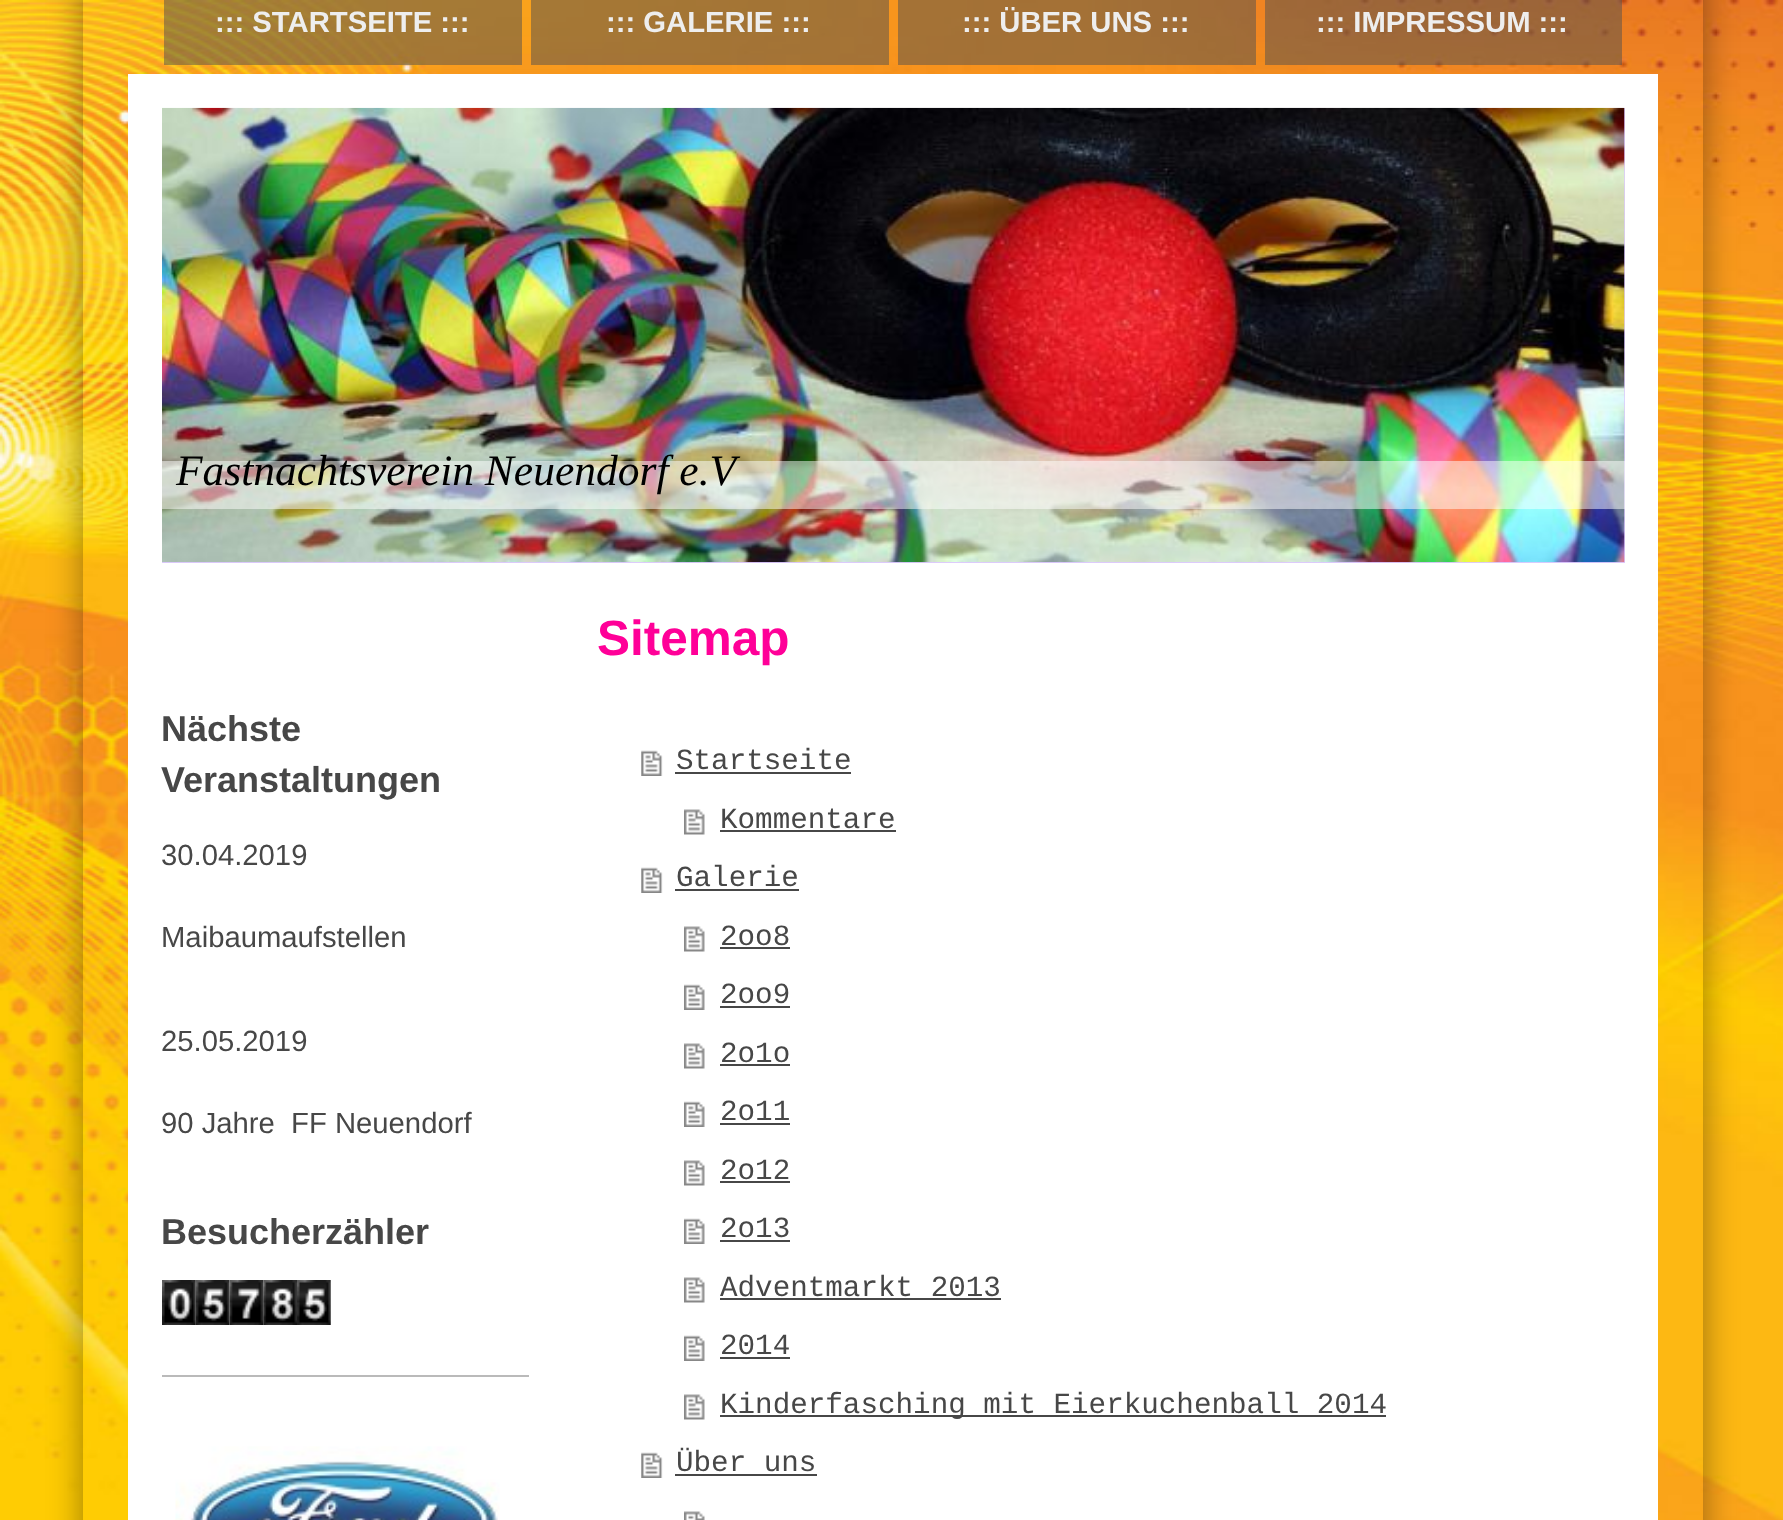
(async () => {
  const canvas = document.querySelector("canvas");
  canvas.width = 1783;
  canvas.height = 1520;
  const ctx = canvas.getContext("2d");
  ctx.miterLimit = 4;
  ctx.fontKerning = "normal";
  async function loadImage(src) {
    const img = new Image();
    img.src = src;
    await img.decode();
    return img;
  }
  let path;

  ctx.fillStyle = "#ffffff";
  ctx.fillRect(0, 0, 1783, 1520);
  ctx.drawImage(await loadImage("img/1.png"), 0, 0, 1783, 1520);
  ctx.save();
  path = new Path2D("M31 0H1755V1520H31ZM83-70H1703V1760H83Z");
  ctx.clip(path, "evenodd");
  ctx.fillStyle = "rgba(0, 0, 0, 0.4)";
  ctx.filter = "blur(17px)";
  ctx.beginPath();
  ctx.rect(83, -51, 1620, 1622);
  ctx.fill();
  ctx.filter = "none";
  ctx.restore();
  for (const [x, y, w, h, color] of [
    [164, 0, 358, 65, "rgba(80, 80, 80, 0.5)"],
    [531, 0, 358, 65, "rgba(80, 80, 80, 0.5)"],
    [898, 0, 358, 65, "rgba(80, 80, 80, 0.5)"],
    [1265, 0, 357, 65, "rgba(80, 80, 80, 0.5)"],
    [128, 74, 1530, 1446, "#ffffff"],
    [162, 108, 1463, 455, "#ddc9fe"],
  ]) {
    ctx.fillStyle = color;
    ctx.fillRect(x, y, w, h);
  }
  ctx.drawImage(await loadImage("img/2.png"), 162, 107, 1463, 456);
  ctx.fillStyle = "rgba(255, 255, 255, 0.5)";
  ctx.fillRect(162, 461, 1463, 48);
  ctx.drawImage(await loadImage("img/3.png"), 162, 1280, 34, 45);
  ctx.drawImage(await loadImage("img/4.png"), 195, 1280, 35, 45);
  ctx.drawImage(await loadImage("img/5.png"), 229, 1280, 35, 45);
  ctx.drawImage(await loadImage("img/6.png"), 263, 1280, 34, 45);
  ctx.drawImage(await loadImage("img/7.png"), 297, 1280, 34, 45);
  ctx.fillStyle = "#bababa";
  ctx.fillRect(162, 1375, 367, 2);
  ctx.drawImage(await loadImage("img/8.png"), 175, 1446, 325, 74);
  ctx.drawImage(await loadImage("img/9.png"), 641, 750, 22, 26);
  ctx.fillStyle = "#474747";
  ctx.fillRect(675, 772, 176, 2);
  ctx.drawImage(await loadImage("img/10.png"), 684, 809, 21, 26);
  ctx.fillRect(720, 830, 176, 2);
  ctx.drawImage(await loadImage("img/9.png"), 641, 867, 22, 26);
  ctx.fillRect(675, 889, 124, 2);
  ctx.drawImage(await loadImage("img/10.png"), 684, 926, 21, 26);
  ctx.fillRect(720, 947, 70, 2);
  ctx.drawImage(await loadImage("img/11.png"), 684, 984, 21, 26);
  ctx.fillRect(720, 1006, 70, 2);
  ctx.drawImage(await loadImage("img/12.png"), 684, 1043, 21, 26);
  ctx.fillRect(720, 1064, 70, 2);
  ctx.drawImage(await loadImage("img/11.png"), 684, 1101, 21, 26);
  ctx.fillRect(720, 1123, 70, 2);
  ctx.drawImage(await loadImage("img/10.png"), 684, 1160, 21, 26);
  ctx.fillRect(720, 1181, 70, 2);
  ctx.drawImage(await loadImage("img/11.png"), 684, 1218, 21, 26);
  ctx.fillRect(720, 1240, 70, 2);
  ctx.drawImage(await loadImage("img/10.png"), 684, 1277, 21, 26);
  ctx.fillRect(720, 1298, 281, 2);
  ctx.drawImage(await loadImage("img/11.png"), 684, 1335, 21, 26);
  ctx.fillRect(720, 1357, 70, 2);
  ctx.drawImage(await loadImage("img/10.png"), 684, 1394, 21, 26);
  ctx.fillRect(720, 1415, 666, 2);
  ctx.drawImage(await loadImage("img/9.png"), 641, 1452, 22, 26);
  ctx.fillRect(675, 1474, 142, 2);
  ctx.drawImage(await loadImage("img/13.png"), 684, 1511, 21, 9);
  ctx.font = "bold 29.25px Liberation Sans";
  ctx.fillStyle = "#eeeeee";
  for (const [text, x, y] of [
    ["::: STARTSEITE :::", 215, 32],
    ["::: GALERIE :::", 606, 32],
    ["::: ÜBER UNS :::", 962, 32],
    ["::: IMPRESSUM :::", 1316, 32],
  ]) {
    ctx.fillText(text, x, y);
  }
  ctx.font = "italic 43.5px Liberation Serif";
  ctx.fillStyle = "#000000";
  ctx.fillText("Fastnachtsverein Neuendorf e.V", 176, 485);
  ctx.font = "bold 36px Liberation Sans";
  ctx.fillStyle = "#474747";
  ctx.fillText("Nächste", 161, 741);
  ctx.fillText("Veranstaltungen", 161, 792);
  ctx.font = "29.25px Liberation Sans";
  for (const [text, x, y] of [
    ["30.04.2019", 161, 865],
    ["Maibaumaufstellen", 161, 947],
    ["25.05.2019", 161, 1051],
    ["90 Jahre  FF Neuendorf", 161, 1133],
  ]) {
    ctx.fillText(text, x, y);
  }
  ctx.font = "bold 36px Liberation Sans";
  ctx.fillText("Besucherzähler", 161, 1244);
  ctx.font = "bold 49.5px Liberation Sans";
  ctx.fillStyle = "#ff0098";
  ctx.fillText("Sitemap", 597, 655);
  ctx.font = "29.25px Liberation Mono";
  ctx.fillStyle = "#474747";
  for (const [text, x, y] of [
    ["Startseite", 676, 769],
    ["Kommentare", 720, 828],
    ["Galerie", 676, 886],
    ["2oo8", 720, 945],
    ["2oo9", 720, 1003],
    ["2o1o", 720, 1062],
    ["2o11", 720, 1120],
    ["2o12", 720, 1179],
    ["2o13", 720, 1237],
    ["Adventmarkt 2013", 720, 1296],
    ["2014", 720, 1354],
    ["Kinderfasching mit Eierkuchenball 2014", 720, 1413],
    ["Über uns", 676, 1471],
  ]) {
    ctx.fillText(text, x, y);
  }
})();
